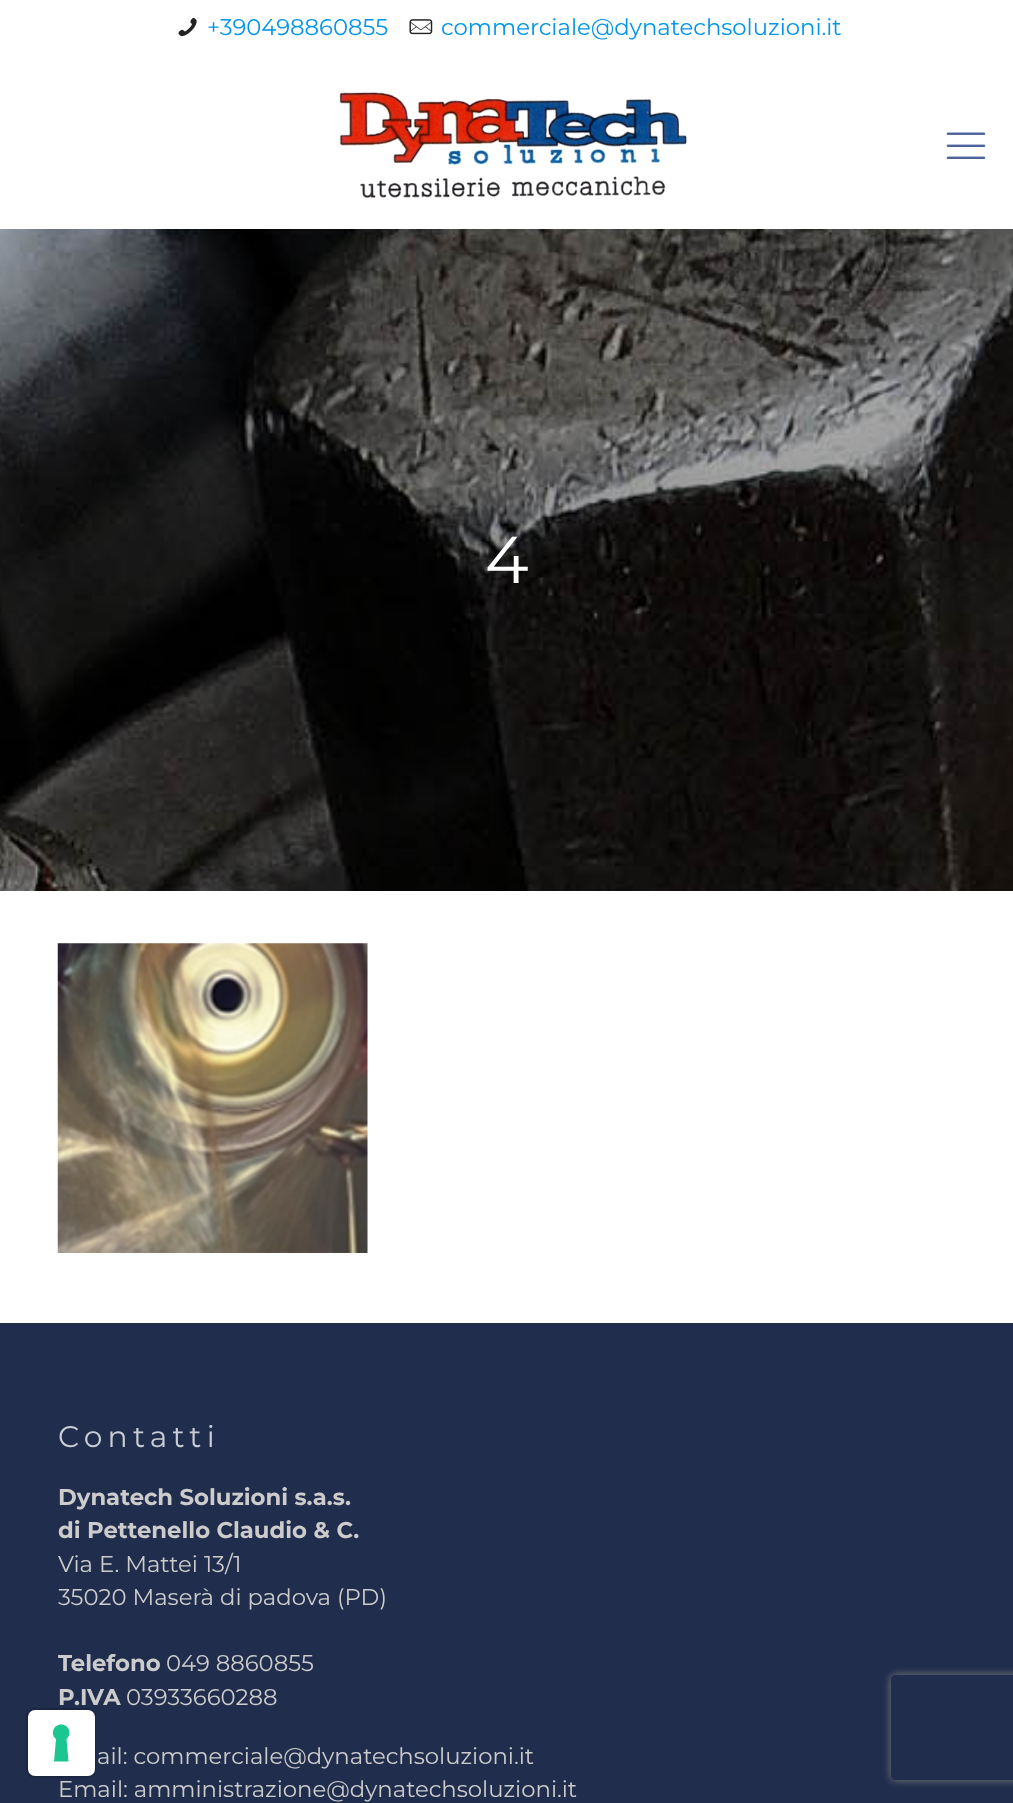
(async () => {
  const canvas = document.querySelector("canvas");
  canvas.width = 1013;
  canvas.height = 1803;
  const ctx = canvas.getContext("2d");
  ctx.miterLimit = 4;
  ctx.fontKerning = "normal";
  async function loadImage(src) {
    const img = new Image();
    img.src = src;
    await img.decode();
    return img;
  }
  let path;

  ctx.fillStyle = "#ffffff";
  ctx.fillRect(0, 0, 1013, 1803);
  ctx.drawImage(await loadImage("img/1.png"), 0, 229, 1013, 662);
  ctx.drawImage(await loadImage("img/2.png"), 178, 17, 19, 20);
  ctx.drawImage(await loadImage("img/3.png"), 409, 19, 24, 16);
  ctx.drawImage(await loadImage("img/4.png"), 328, 89, 359, 110);
  ctx.drawImage(await loadImage("img/5.png"), 946, 132, 40, 27);
  ctx.drawImage(await loadImage("img/6.png"), 57, 943, 311, 310);
  ctx.fillStyle = "#202d4c";
  ctx.fillRect(0, 1323, 1013, 480);
  ctx.save();
  path = new Path2D("M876 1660H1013V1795H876ZM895 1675H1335C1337 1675 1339 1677 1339 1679V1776C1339 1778 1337 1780 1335 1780H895C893 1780 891 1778 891 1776V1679C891 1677 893 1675 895 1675Z");
  ctx.clip(path, "evenodd");
  ctx.fillStyle = "#808080";
  ctx.filter = "blur(4.5px)";
  ctx.beginPath();
  ctx.roundRect(891, 1675, 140, 105, 4);
  ctx.fill();
  ctx.filter = "none";
  ctx.restore();
  ctx.beginPath();
  ctx.roundRect(27, 1709, 68, 68, 8);
  ctx.strokeStyle = "rgba(0, 0, 0, 0.15)";
  ctx.lineWidth = 2;
  ctx.stroke();
  ctx.fillStyle = "#ffffff";
  ctx.beginPath();
  ctx.roundRect(28, 1710, 67, 66, 7);
  ctx.fill();
  ctx.fillStyle = "#1cc691";
  path = new Path2D("M61 1724.5C69 1724.5 72.5 1734 66.5 1739L68.5 1761.5H54L56 1739C50 1734 53.5 1724.5 61 1724.5Z");
  ctx.fill(path, "evenodd");
  ctx.font = "22.75px Montserrat";
  ctx.fillStyle = "#0095eb";
  ctx.fillText("+390498860855", 207, 35);
  ctx.fillText("commerciale@dynatechsoluzioni.it", 441, 35);
  ctx.font = "66px Montserrat";
  ctx.fillStyle = "#ffffff";
  ctx.fillText("4", 485, 583);
  ctx.letterSpacing = "5.25px";
  ctx.font = "29.75px Montserrat";
  ctx.fillStyle = "#cacdd5";
  ctx.fillText("Contatti", 58, 1447);
  ctx.letterSpacing = "0px";
  ctx.font = "bold 22.75px Montserrat";
  ctx.fillStyle = "#cccccc";
  ctx.fillText("Dynatech Soluzioni s.a.s.", 58, 1505);
  ctx.fillText("di Pettenello Claudio & C.", 58, 1538);
  ctx.font = "22.75px Montserrat";
  ctx.fillText("Via E. Mattei 13/1", 58, 1572);
  ctx.fillText("35020 Maserà di padova (PD)", 58, 1605);
  ctx.font = "bold 22.75px Montserrat";
  ctx.fillText("Telefono", 58, 1671);
  ctx.font = "22.75px Montserrat";
  ctx.fillText("049 8860855", 166, 1671);
  ctx.font = "bold 22.75px Montserrat";
  ctx.fillText("P.IVA", 58, 1705);
  ctx.font = "22.75px Montserrat";
  for (const [text, x, y] of [
    ["03933660288", 126, 1705],
    ["ail: commerciale@dynatechsoluzioni.it", 97, 1764],
    ["Email: amministrazione@dynatechsoluzioni.it", 58, 1797],
  ]) {
    ctx.fillText(text, x, y);
  }
})();
